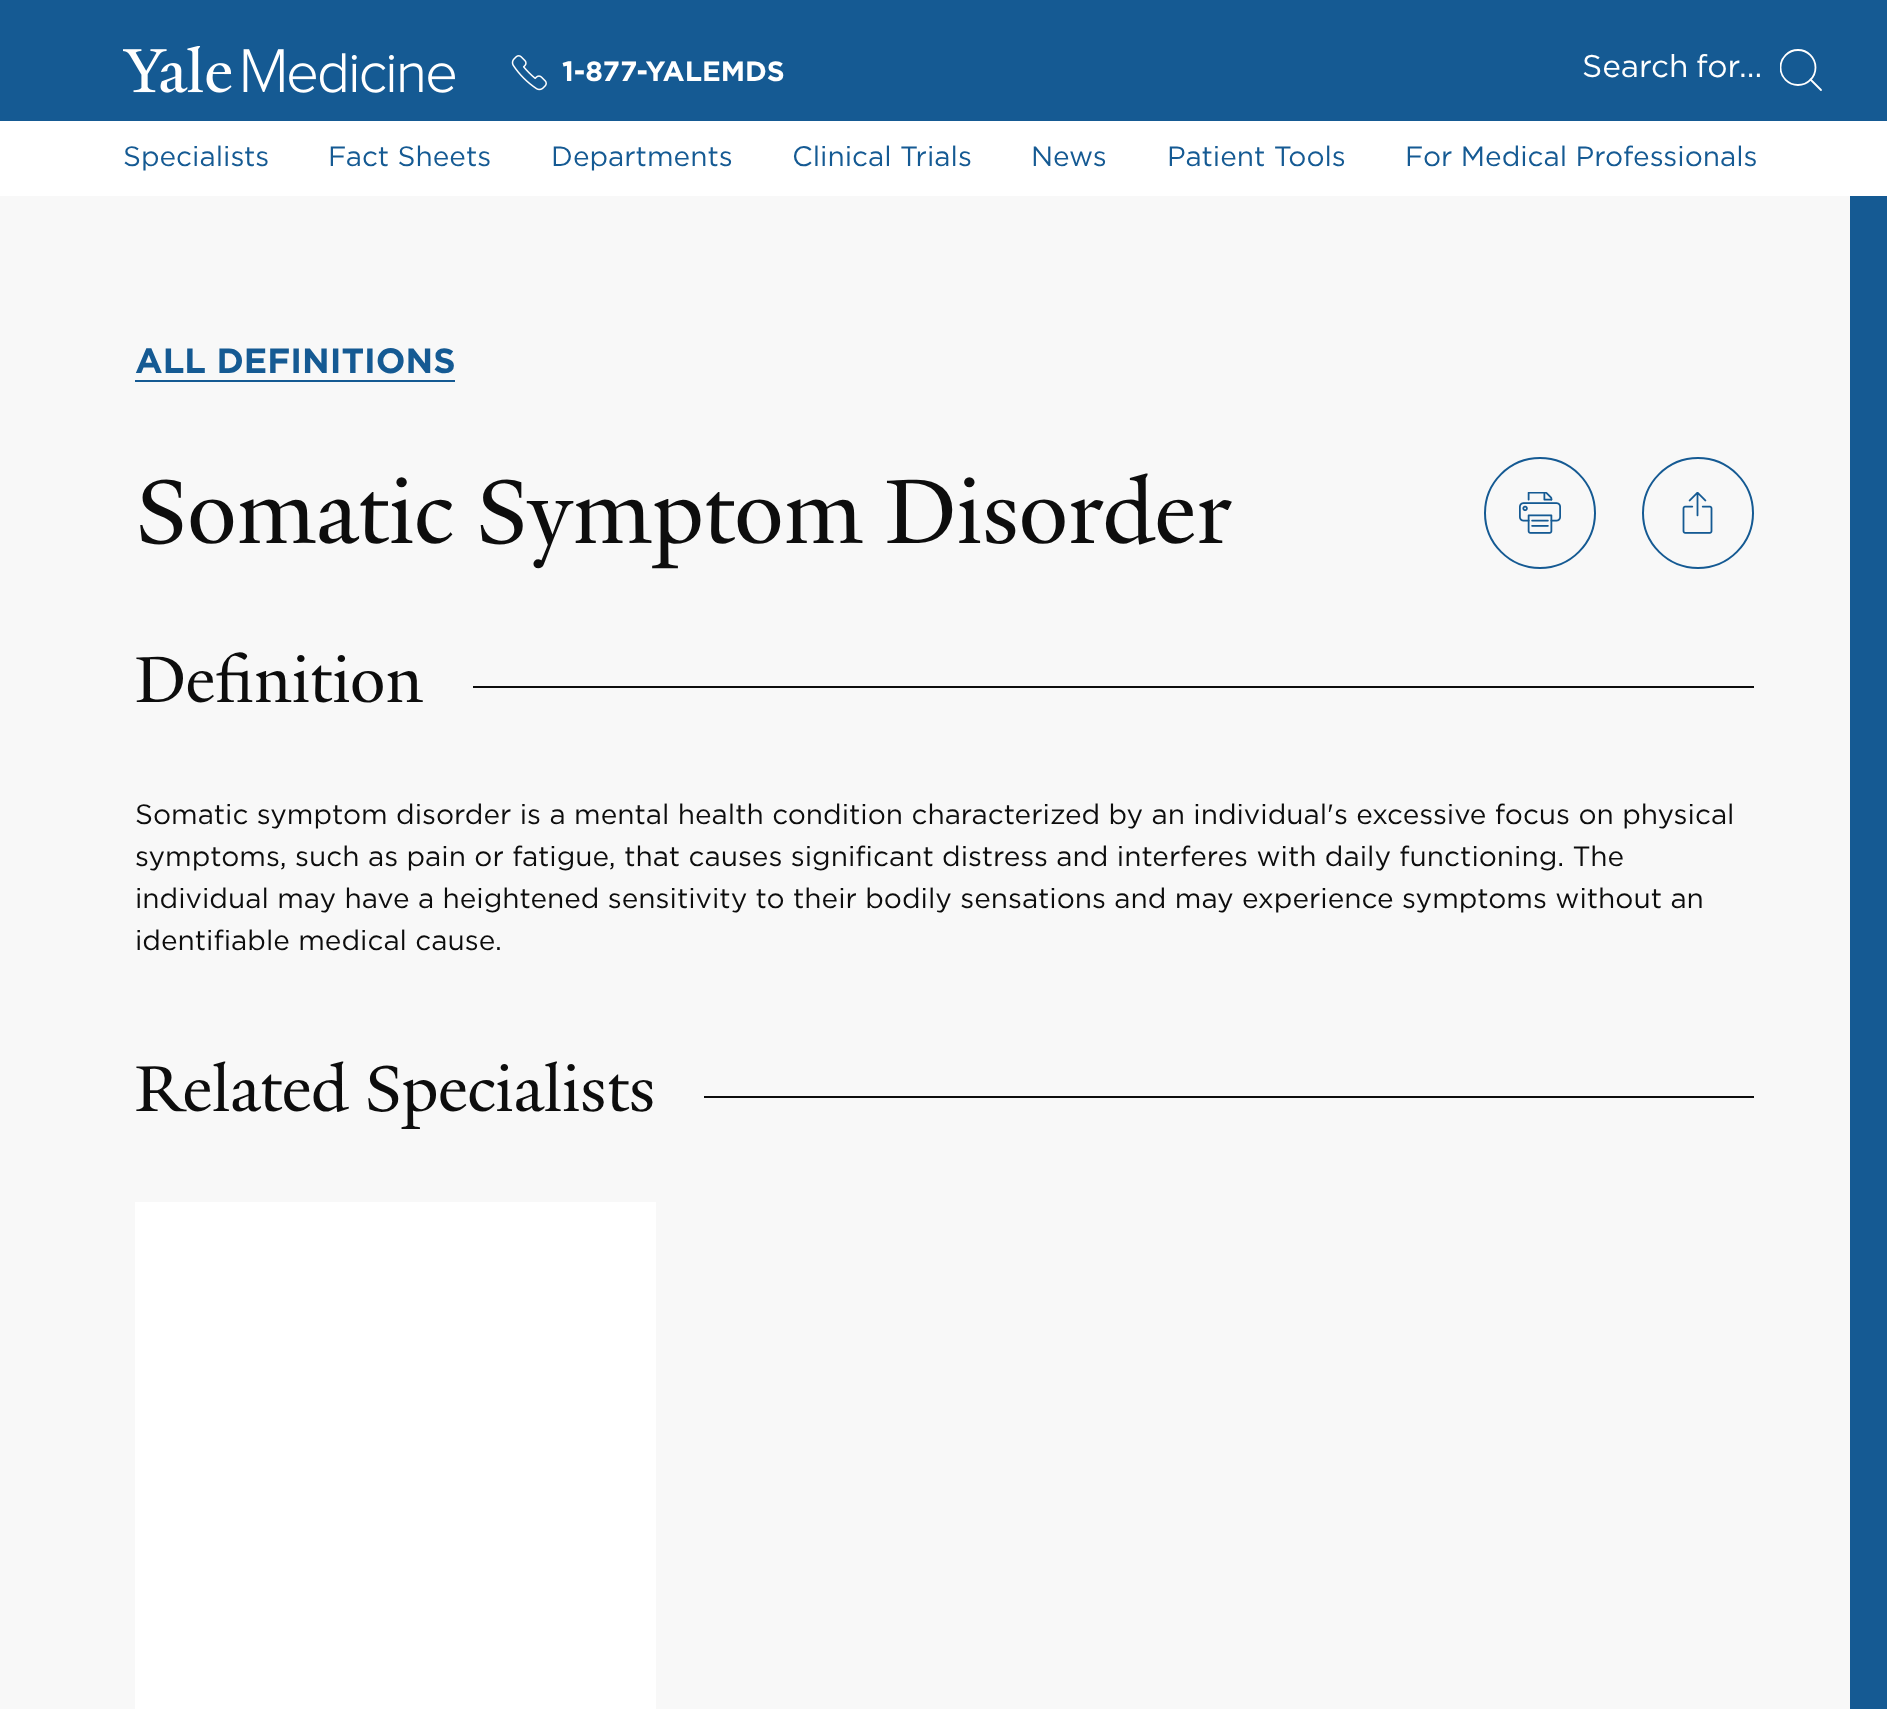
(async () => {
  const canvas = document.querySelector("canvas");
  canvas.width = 1887;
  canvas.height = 1709;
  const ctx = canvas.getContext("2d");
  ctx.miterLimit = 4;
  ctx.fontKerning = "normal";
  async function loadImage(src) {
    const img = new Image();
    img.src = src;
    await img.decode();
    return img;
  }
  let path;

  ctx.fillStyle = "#f8f8f8";
  ctx.fillRect(0, 0, 1887, 1709);
  ctx.fillStyle = "#155a93";
  ctx.fillRect(0, 0, 1887, 121);
  ctx.drawImage(await loadImage("img/1.png"), 123, 46, 332, 47);
  ctx.drawImage(await loadImage("img/2.png"), 511, 55, 36, 36);
  ctx.save();
  ctx.beginPath();
  ctx.rect(1780, 49, 42, 42);
  ctx.clip();
  ctx.beginPath();
  ctx.arc(1798, 67.5, 17.5, 0, Math.PI * 2);
  ctx.strokeStyle = "#ffffff";
  ctx.lineWidth = 1.8;
  ctx.stroke();
  ctx.restore();
  path = new Path2D("M1821 90L1810.5 79.5");
  ctx.strokeStyle = "#ffffff";
  ctx.lineWidth = 1.8;
  ctx.lineCap = "round";
  ctx.lineJoin = "round";
  ctx.stroke(path);
  ctx.fillStyle = "#ffffff";
  ctx.fillRect(0, 121, 1887, 75);
  ctx.fillStyle = "#155a93";
  ctx.fillRect(135, 380, 320, 2);
  ctx.beginPath();
  ctx.arc(1540, 513, 55, 0, Math.PI * 2);
  ctx.strokeStyle = "#155a93";
  ctx.lineWidth = 2;
  ctx.stroke();
  ctx.drawImage(await loadImage("img/3.png"), 1519, 492, 42, 42);
  ctx.beginPath();
  ctx.arc(1698, 513, 55, 0, Math.PI * 2);
  ctx.stroke();
  ctx.drawImage(await loadImage("img/4.png"), 1682, 492, 31, 42);
  for (const [x, y, w, h, color] of [
    [473, 686, 1281, 2, "#0d0d0d"],
    [704, 1096, 1050, 2, "#0d0d0d"],
    [135, 1202, 521, 507, "#ffffff"],
    [1850, 196, 37, 1513, "#155a93"],
  ]) {
    ctx.fillStyle = color;
    ctx.fillRect(x, y, w, h);
  }
  ctx.font = "bold 28px Gotham";
  ctx.fillStyle = "#ffffff";
  ctx.fillText("1-877-YALEMDS", 562, 81);
  ctx.wordSpacing = "-2px";
  ctx.font = "31.5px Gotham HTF";
  ctx.fillText("Search for", 1582, 77);
  ctx.wordSpacing = "0px";
  ctx.fillText("...", 1739, 77);
  ctx.font = "28px Gotham HTF";
  ctx.fillStyle = "#155a93";
  for (const [text, x, y] of [
    ["Specialists", 123, 166],
    ["Fact Sheets", 328, 166],
    ["Departments", 551, 166],
    ["Clinical Trials", 792, 166],
    ["News", 1031, 166],
    ["Patient Tools", 1167, 166],
    ["For Medical Professionals", 1405, 166],
  ]) {
    ctx.fillText(text, x, y);
  }
  ctx.font = "bold 35px Gotham";
  ctx.fillText("ALL DEFINITIONS", 135, 373);
  ctx.font = "98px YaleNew";
  ctx.fillStyle = "#0d0d0d";
  ctx.fillText("Somatic Symptom Disorder", 135, 543);
  ctx.font = "70px YaleNew";
  ctx.fillText("Definition", 135, 702);
  ctx.font = "28px Gotham HTF";
  for (const [text, x, y] of [
    ["Somatic symptom disorder is a mental health condition characterized by an individual's excessive focus on physical", 135, 824],
    ["symptoms, such as pain or fatigue, that causes significant distress and interferes with daily functioning. The", 135, 866],
    ["individual may have a heightened sensitivity to their bodily sensations and may experience symptoms without an", 135, 908],
    ["identifiable medical cause.", 135, 950],
  ]) {
    ctx.fillText(text, x, y);
  }
  ctx.font = "70px YaleNew";
  ctx.fillText("Related Specialists", 135, 1111);
})();
